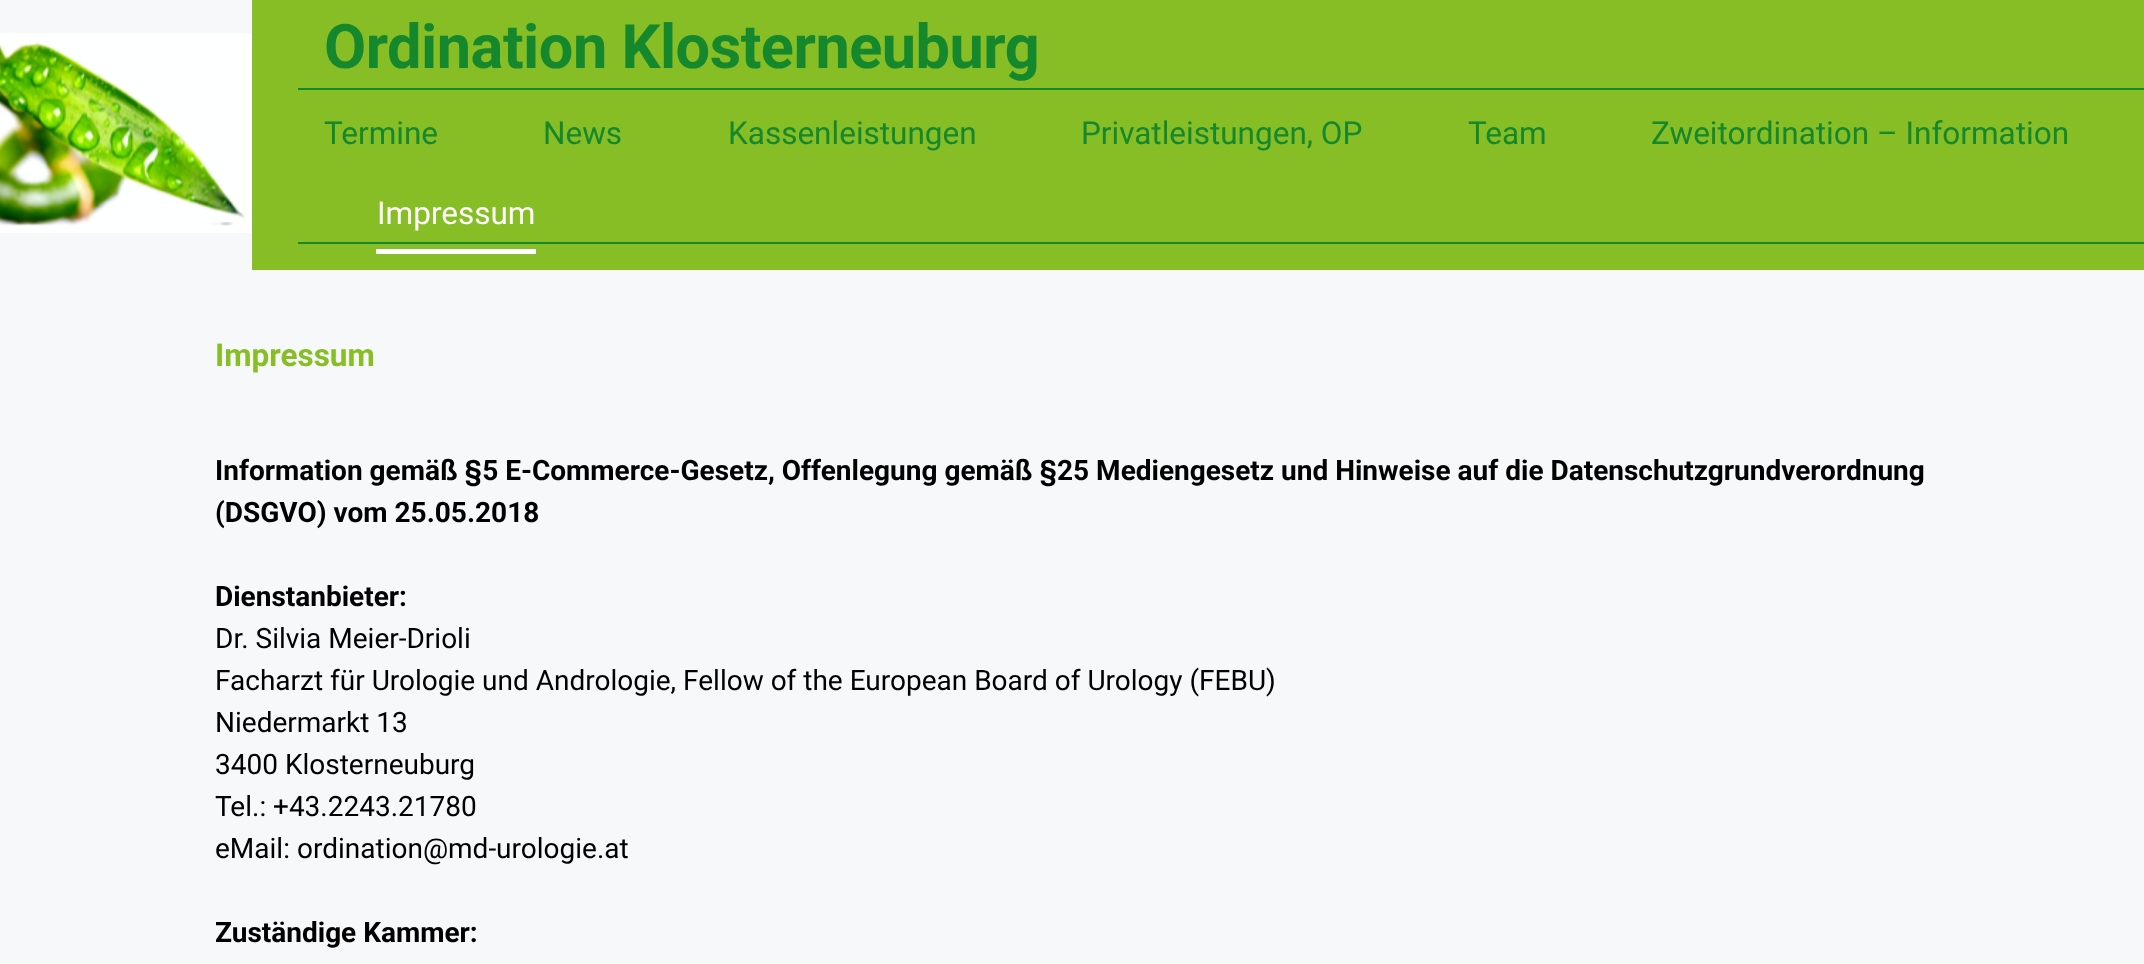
(async () => {
  const canvas = document.querySelector("canvas");
  canvas.width = 2144;
  canvas.height = 964;
  const ctx = canvas.getContext("2d");
  ctx.miterLimit = 4;
  ctx.fontKerning = "normal";
  async function loadImage(src) {
    const img = new Image();
    img.src = src;
    await img.decode();
    return img;
  }

  ctx.fillStyle = "#f7f8f9";
  ctx.fillRect(0, 0, 2144, 964);
  ctx.fillStyle = "#ffffff";
  ctx.fillRect(0, 231, 252, 2);
  ctx.drawImage(await loadImage("img/1.png"), 0, 33, 252, 200);
  for (const [x, y, w, h, color] of [
    [252, 0, 1892, 270, "#87bd25"],
    [298, 88, 1846, 2, "#15882e"],
    [376, 249, 160, 5, "#ffffff"],
    [298, 242, 1846, 2, "#15882e"],
  ]) {
    ctx.fillStyle = color;
    ctx.fillRect(x, y, w, h);
  }
  ctx.letterSpacing = "-0.5px";
  ctx.font = "bold 61.25px Roboto";
  ctx.fillText("Ordination Klosterneuburg", 324, 68);
  ctx.letterSpacing = "0px";
  ctx.font = "31.5px Roboto";
  for (const [text, x, y] of [
    ["Termine", 324, 144],
    ["News", 543, 144],
    ["Kassenleistungen", 728, 144],
    ["Privatleistungen, OP", 1081, 144],
    ["Team", 1468, 144],
    ["Zweitordination – Information", 1651, 144],
  ]) {
    ctx.fillText(text, x, y);
  }
  ctx.fillStyle = "#ffffff";
  ctx.fillText("Impressum", 377, 224);
  ctx.font = "bold 31.5px Roboto";
  ctx.fillStyle = "#87bd25";
  ctx.fillText("Impressum", 215, 366);
  ctx.font = "bold 28px Roboto";
  ctx.fillStyle = "#000000";
  for (const [text, x, y] of [
    ["Information gemäß §5 E-Commerce-Gesetz, Offenlegung gemäß §25 Mediengesetz und Hinweise auf die Datenschutzgrundverordnung", 215, 480],
    ["(DSGVO) vom 25.05.2018", 215, 522],
    ["Dienstanbieter:", 215, 606],
  ]) {
    ctx.fillText(text, x, y);
  }
  ctx.font = "28px Roboto";
  for (const [text, x, y] of [
    ["Dr. Silvia Meier-Drioli", 215, 648],
    ["Facharzt für Urologie und Andrologie, Fellow of the European Board of Urology (FEBU)", 215, 690],
    ["Niedermarkt 13", 215, 732],
    ["3400 Klosterneuburg", 215, 774],
    ["Tel.:", 215, 816],
    ["+43.2243.21780", 273, 816],
    ["eMail:", 215, 858],
    ["ordination@md-urologie.at", 297, 858],
  ]) {
    ctx.fillText(text, x, y);
  }
  ctx.font = "bold 28px Roboto";
  ctx.fillText("Zuständige Kammer:", 215, 942);
})();
